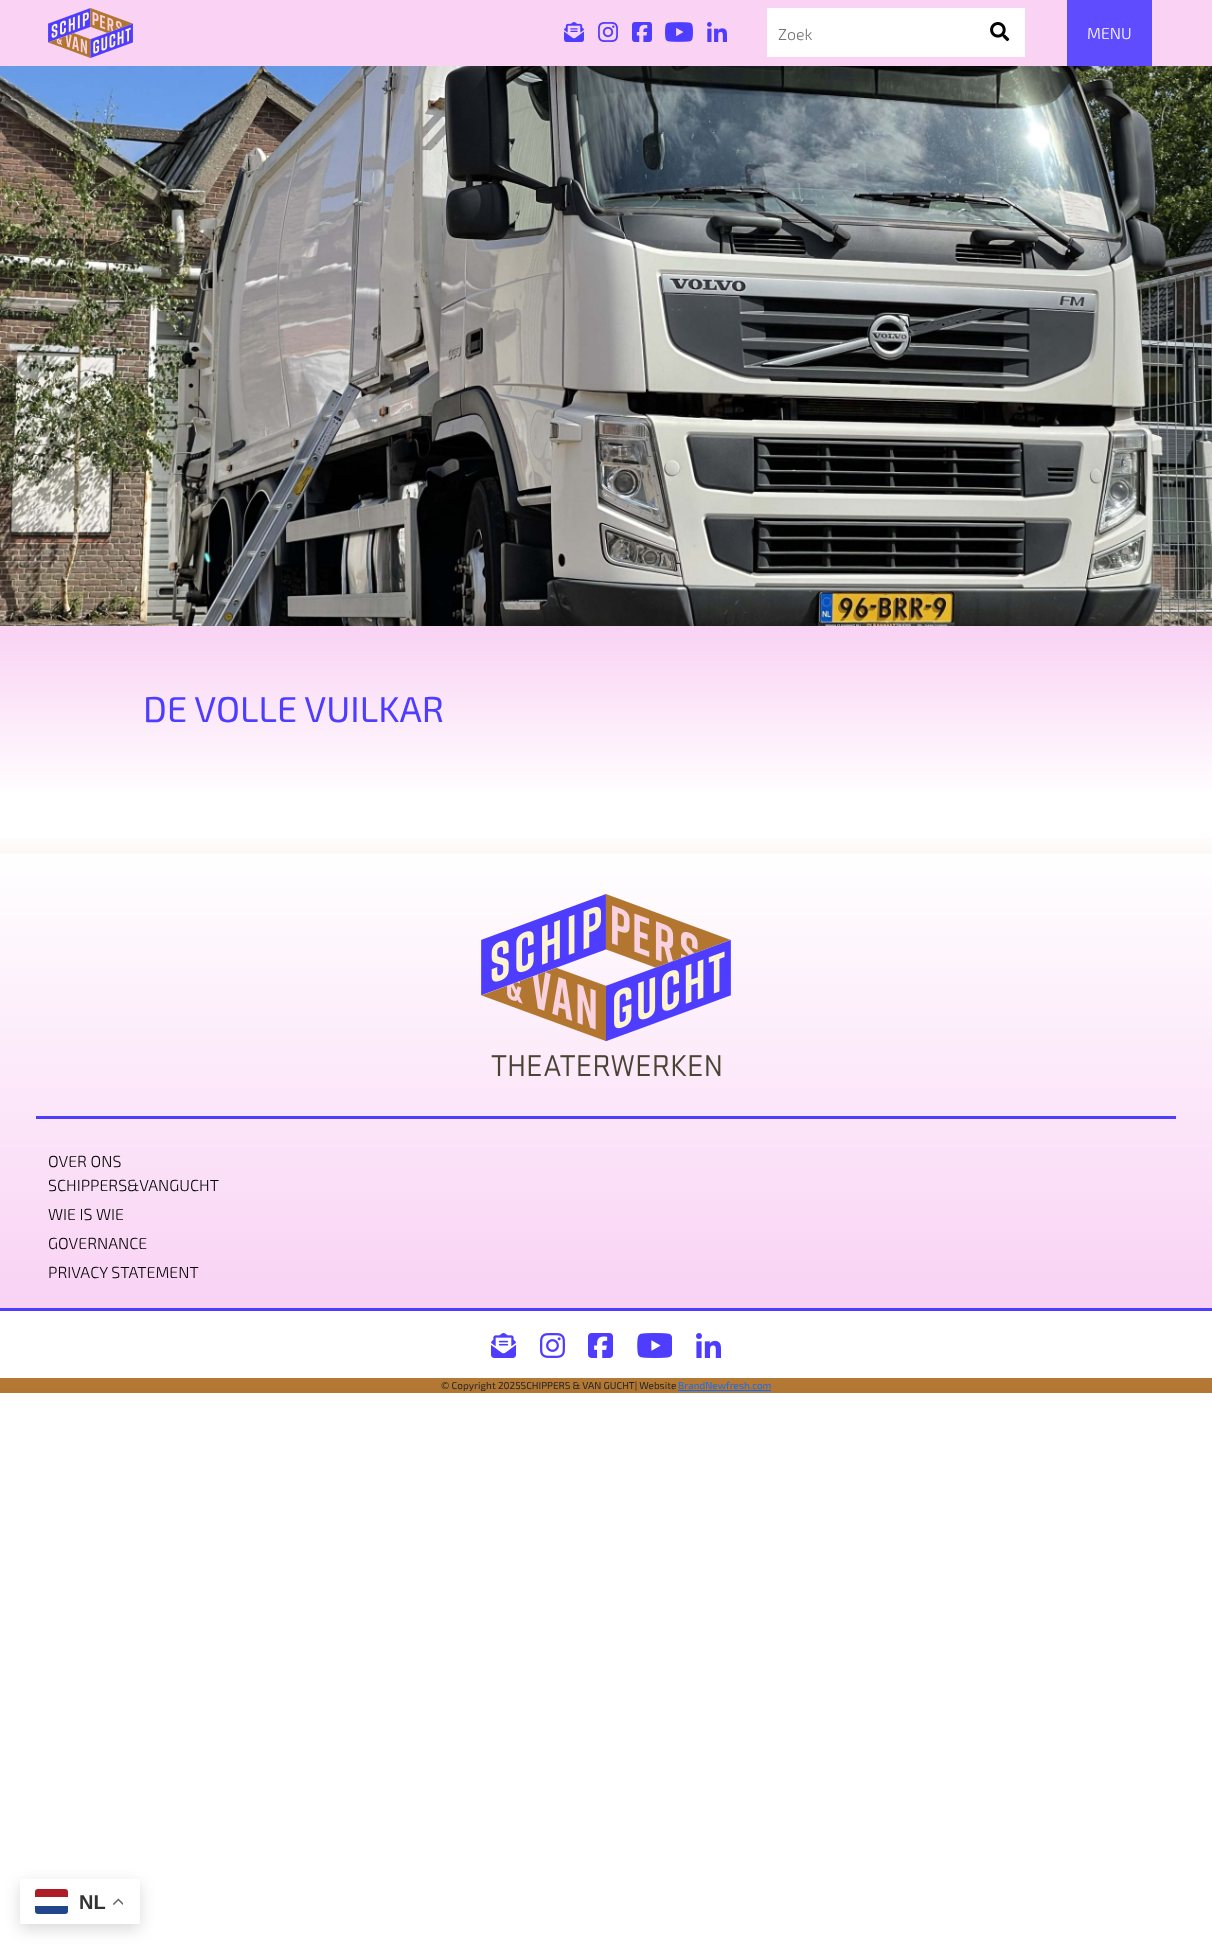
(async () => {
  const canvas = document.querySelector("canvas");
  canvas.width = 1212;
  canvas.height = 1950;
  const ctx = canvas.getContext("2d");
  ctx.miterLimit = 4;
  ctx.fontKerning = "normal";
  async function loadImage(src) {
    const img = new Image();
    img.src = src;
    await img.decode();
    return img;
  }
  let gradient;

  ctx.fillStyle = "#ffffff";
  ctx.fillRect(0, 0, 1212, 1950);
  ctx.fillStyle = "#f9d2f4";
  ctx.fillRect(0, 0, 1212, 66);
  ctx.drawImage(await loadImage("img/1.png"), 48, 8, 85, 50);
  ctx.drawImage(await loadImage("img/2.png"), 564, 22, 20, 20);
  ctx.drawImage(await loadImage("img/3.png"), 598, 22, 20, 20);
  ctx.drawImage(await loadImage("img/4.png"), 632, 22, 20, 20);
  ctx.drawImage(await loadImage("img/5.png"), 665, 22, 28, 20);
  ctx.drawImage(await loadImage("img/6.png"), 707, 22, 20, 20);
  ctx.fillStyle = "#ffffff";
  ctx.fillRect(767, 8, 258, 49);
  ctx.drawImage(await loadImage("img/7.png"), 990, 22, 20, 20);
  ctx.fillStyle = "#5f4cfe";
  ctx.fillRect(1067, 0, 85, 66);
  ctx.drawImage(await loadImage("img/8.png"), 0, 66, 1212, 560);
  gradient = ctx.createLinearGradient(606, 800, 606, 626);
  gradient.addColorStop(0, "#ffffff");
  gradient.addColorStop(1, "#f9d2f4");
  ctx.fillStyle = gradient;
  ctx.fillRect(0, 626, 1212, 164);
  gradient = ctx.createLinearGradient(606, 830, 606, 1393);
  gradient.addColorStop(0, "#ffffff");
  gradient.addColorStop(1, "#b27631");
  ctx.fillStyle = gradient;
  ctx.fillRect(0, 837, 1212, 556);
  gradient = ctx.createLinearGradient(606, 854, 606, 1308);
  gradient.addColorStop(0, "#ffffff");
  gradient.addColorStop(1, "#f9d2f4");
  ctx.fillStyle = gradient;
  ctx.fillRect(0, 854, 1212, 454);
  ctx.fillStyle = "#4e3dff";
  ctx.fillRect(0, 1308, 1212, 3);
  ctx.fillRect(36, 1116, 1140, 3);
  ctx.drawImage(await loadImage("img/9.png"), 481, 894, 250, 182);
  ctx.fillStyle = "#ffffff";
  ctx.fillRect(0, 1311, 1212, 67);
  ctx.drawImage(await loadImage("img/10.png"), 491, 1333, 25, 25);
  ctx.drawImage(await loadImage("img/11.png"), 540, 1333, 25, 25);
  ctx.drawImage(await loadImage("img/12.png"), 588, 1333, 25, 25);
  ctx.drawImage(await loadImage("img/13.png"), 637, 1333, 35, 25);
  ctx.drawImage(await loadImage("img/14.png"), 696, 1333, 25, 25);
  ctx.fillStyle = "#0d6efd";
  ctx.fillRect(678, 1390, 93, 1);
  ctx.fillStyle = "rgba(0, 0, 0, 0.15)";
  ctx.filter = "blur(7.5px)";
  ctx.beginPath();
  ctx.roundRect(20, 1884, 120, 45, 2);
  ctx.fill();
  ctx.filter = "none";
  ctx.fillStyle = "#ffffff";
  ctx.beginPath();
  ctx.roundRect(20, 1879, 120, 45, 2);
  ctx.fill();
  ctx.fillStyle = "#21468b";
  ctx.beginPath();
  ctx.roundRect(35, 1906, 33, 8, [0, 0, 3, 3]);
  ctx.fill();
  ctx.fillStyle = "#ae1c28";
  ctx.beginPath();
  ctx.roundRect(35, 1889, 33, 8, [3, 3, 0, 0]);
  ctx.fill();
  ctx.drawImage(await loadImage("img/15.png"), 113, 1898, 10, 7);
  ctx.font = "300 16px 'Exo 2'";
  ctx.fillStyle = "#757575";
  ctx.fillText("Zoek", 778, 40);
  ctx.fillStyle = "#ffffff";
  ctx.fillText("MENU", 1087, 39);
  ctx.font = "36px 'Exo 2'";
  ctx.fillStyle = "#4e3dff";
  ctx.fillText("DE VOLLE VUILKAR", 143, 722);
  ctx.font = "300 16px 'Exo 2'";
  ctx.fillStyle = "#000000";
  for (const [text, x, y] of [
    ["OVER ONS", 48, 1167],
    ["SCHIPPERS&VANGUCHT", 48, 1191],
    ["WIE IS WIE", 48, 1220],
    ["GOVERNANCE", 48, 1249],
    ["PRIVACY STATEMENT", 48, 1278],
  ]) {
    ctx.fillText(text, x, y);
  }
  ctx.font = "10px 'Exo 2'";
  ctx.fillStyle = "#212529";
  ctx.fillText("© Copyright 2025SCHIPPERS & VAN GUCHT| Website", 441, 1389);
  ctx.fillStyle = "#0d6efd";
  ctx.fillText("BrandNewfresh.com", 678, 1389);
  ctx.font = "bold 20px Liberation Sans";
  ctx.fillStyle = "#333333";
  ctx.fillText("NL", 79, 1909);
})();
